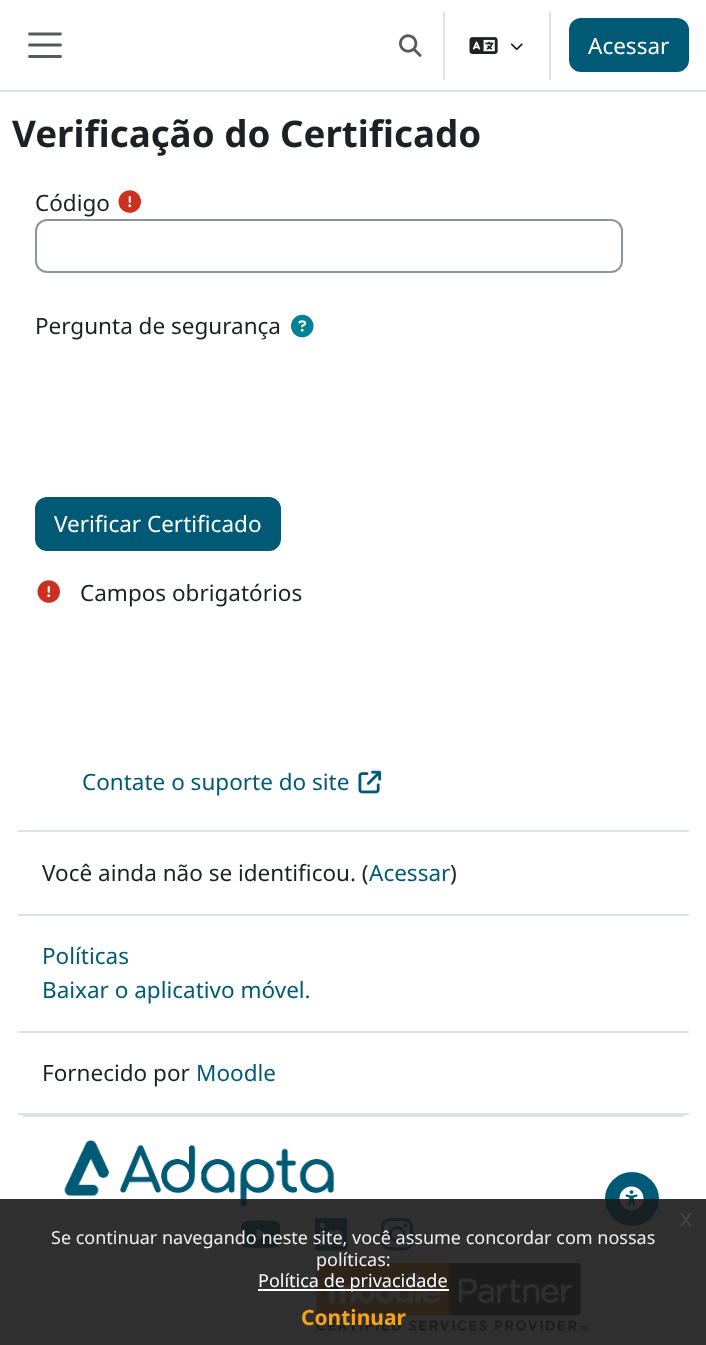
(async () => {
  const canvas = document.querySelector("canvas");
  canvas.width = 706;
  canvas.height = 1345;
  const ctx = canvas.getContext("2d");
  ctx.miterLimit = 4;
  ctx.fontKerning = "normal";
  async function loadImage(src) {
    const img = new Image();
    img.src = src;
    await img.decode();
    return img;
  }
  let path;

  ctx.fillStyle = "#ffffff";
  ctx.fillRect(0, 0, 706, 1345);
  ctx.fillStyle = "#dee2e6";
  ctx.fillRect(0, 90, 706, 2);
  path = new Path2D("M29.5 34H60.5M29.5 45H60.5M29.5 56.5H60.5");
  ctx.strokeStyle = "#56595c";
  ctx.lineWidth = 2.8;
  ctx.lineCap = "round";
  ctx.stroke(path);
  ctx.drawImage(await loadImage("img/1.png"), 399, 34, 23, 23);
  ctx.fillRect(443, 12, 2, 68);
  ctx.drawImage(await loadImage("img/2.png"), 469, 37, 29, 17);
  ctx.drawImage(await loadImage("img/3.png"), 510, 43, 13, 8);
  ctx.fillRect(549, 12, 2, 68);
  ctx.fillStyle = "#005a75";
  ctx.beginPath();
  ctx.roundRect(570, 19, 118, 52, 11);
  ctx.fill();
  ctx.strokeStyle = "#005a75";
  ctx.lineWidth = 2;
  ctx.stroke();
  ctx.drawImage(await loadImage("img/4.png"), 118, 190, 23, 23);
  ctx.beginPath();
  ctx.roundRect(36, 220, 586, 52, 11);
  ctx.strokeStyle = "#8f959e";
  ctx.stroke();
  ctx.drawImage(await loadImage("img/5.png"), 291, 314, 23, 24);
  ctx.beginPath();
  ctx.roundRect(36, 498, 244, 52, 11);
  ctx.fill();
  ctx.strokeStyle = "#005a75";
  ctx.stroke();
  ctx.drawImage(await loadImage("img/4.png"), 37, 580, 23, 23);
  ctx.beginPath();
  ctx.arc(632, 1199, 26, 0, Math.PI * 2);
  ctx.fill();
  ctx.stroke();
  ctx.drawImage(await loadImage("img/6.png"), 619, 1186, 25, 25);
  ctx.fillStyle = "#dee2e6";
  ctx.fillRect(18, 830, 671, 2);
  ctx.drawImage(await loadImage("img/7.png"), 358, 770, 23, 24);
  for (const [x, y, w, h, color] of [
    [18, 914, 671, 2, "#dee2e6"],
    [18, 1031, 671, 2, "#dee2e6"],
    [18, 1113, 671, 2, "#dee2e6"],
    [23, 1115, 661, 2, "#dee2e6"],
  ]) {
    ctx.fillStyle = color;
    ctx.fillRect(x, y, w, h);
  }
  ctx.drawImage(await loadImage("img/8.png"), 64, 1140, 270, 67);
  ctx.drawImage(await loadImage("img/9.png"), 241, 1220, 40, 28);
  ctx.drawImage(await loadImage("img/10.png"), 315, 1218, 33, 33);
  ctx.drawImage(await loadImage("img/11.png"), 381, 1218, 33, 33);
  ctx.drawImage(await loadImage("img/12.png"), 316, 1263, 272, 68);
  ctx.fillStyle = "rgba(25, 25, 25, 0.9)";
  ctx.fillRect(0, 1199, 706, 146);
  ctx.fillStyle = "#ffffff";
  ctx.fillRect(258, 1289, 191, 2);
  ctx.font = "22.5px Noto Sans";
  ctx.fillText("Acessar", 588, 54);
  ctx.font = "bold 36.75px Noto Sans";
  ctx.fillStyle = "#1d2125";
  ctx.fillText("Verificação do Certificado", 12, 147);
  ctx.font = "22.5px Noto Sans";
  ctx.fillText("Código", 35, 211);
  ctx.fillText("Pergunta de segurança", 35, 334);
  ctx.fillStyle = "#ffffff";
  ctx.fillText("Verificar Certificado", 54, 532);
  ctx.fillStyle = "#1d2125";
  ctx.fillText("Campos obrigatórios", 80, 601);
  ctx.fillStyle = "#005a75";
  ctx.fillText("Contate o suporte do site", 82, 790);
  ctx.fillStyle = "#1d2125";
  ctx.fillText("Você ainda não se identificou. (", 42, 881);
  ctx.fillStyle = "#005a75";
  ctx.fillText("Acessar", 369, 881);
  ctx.fillStyle = "#1d2125";
  ctx.fillText(")", 450, 881);
  ctx.fillStyle = "#005a75";
  ctx.fillText("Políticas", 42, 964);
  ctx.fillText("Baixar o aplicativo móvel.", 42, 998);
  ctx.fillStyle = "#1d2125";
  ctx.fillText("Fornecido por", 42, 1081);
  ctx.fillStyle = "#005a75";
  ctx.fillText("Moodle", 196, 1081);
  ctx.font = "24px Liberation Sans";
  ctx.fillStyle = "#474747";
  ctx.fillText("x", 680, 1226);
  ctx.font = "18px Noto Sans";
  ctx.fillStyle = "#efefef";
  ctx.fillText("Se continuar navegando neste site, você assume concordar com nossas", 51, 1244);
  ctx.fillText("políticas:", 316, 1266);
  ctx.fillStyle = "#ffffff";
  ctx.fillText("Política de privacidade", 258, 1287);
  ctx.font = "bold 21px Noto Sans";
  ctx.fillStyle = "#f6a21d";
  ctx.fillText("Continuar", 301, 1325);
})();
